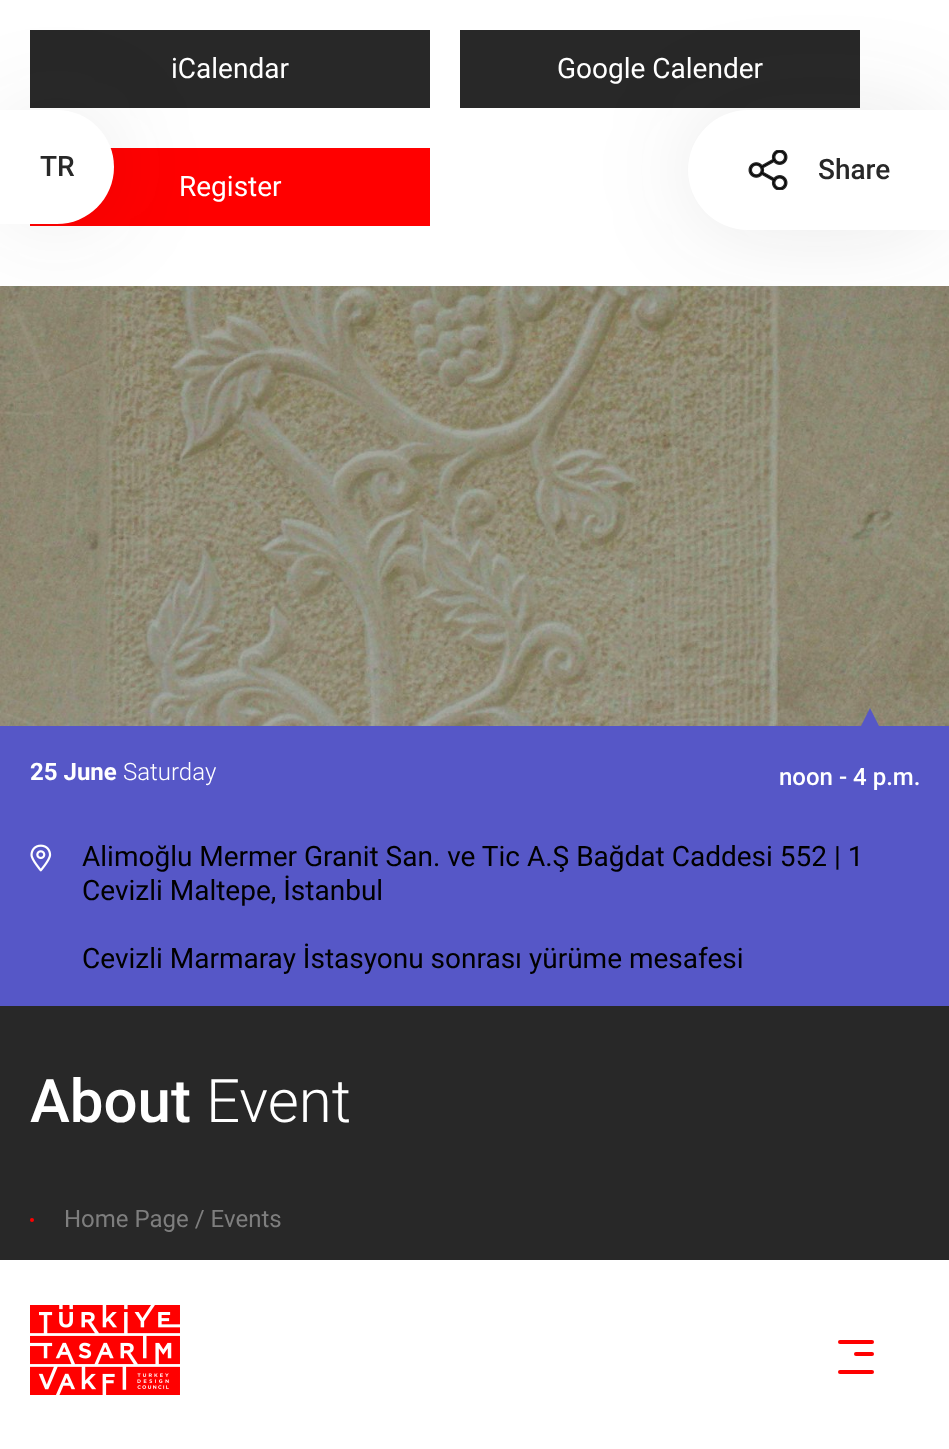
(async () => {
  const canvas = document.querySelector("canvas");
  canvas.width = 949;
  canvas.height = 1449;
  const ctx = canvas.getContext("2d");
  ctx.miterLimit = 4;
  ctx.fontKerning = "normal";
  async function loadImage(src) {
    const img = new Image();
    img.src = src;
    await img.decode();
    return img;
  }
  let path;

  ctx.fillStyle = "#ffffff";
  ctx.fillRect(0, 0, 949, 1449);
  for (const [x, y, w, h, color] of [
    [30, 30, 400, 78, "#282828"],
    [460, 30, 400, 78, "#282828"],
    [30, 148, 400, 78, "#ff0000"],
  ]) {
    ctx.fillStyle = color;
    ctx.fillRect(x, y, w, h);
  }
  ctx.drawImage(await loadImage("img/1.png"), 0, 286, 949, 440);
  ctx.fillStyle = "#5657c7";
  ctx.fillRect(0, 726, 949, 280);
  path = new Path2D("M880 728H860L870 708Z");
  ctx.fill(path);
  ctx.drawImage(await loadImage("img/2.png"), 30, 844, 22, 28);
  ctx.fillStyle = "#282828";
  ctx.fillRect(0, 1006, 949, 254);
  ctx.fillStyle = "rgba(40, 40, 40, 0.1)";
  ctx.filter = "blur(50px)";
  ctx.beginPath();
  ctx.roundRect(0, 110, 114, 114, 57);
  ctx.fill();
  ctx.filter = "none";
  ctx.fillStyle = "#ffffff";
  ctx.beginPath();
  ctx.roundRect(0, 110, 114, 114, [0, 57, 57, 0]);
  ctx.fill();
  ctx.fillStyle = "rgba(40, 40, 40, 0.1)";
  ctx.filter = "blur(50px)";
  ctx.beginPath();
  ctx.roundRect(688, 110, 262, 120, 60);
  ctx.fill();
  ctx.filter = "none";
  ctx.fillStyle = "#ffffff";
  path = new Path2D("M748 110H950V230H748C715 230 688 203 688 170C688 137 715 110 748 110Z");
  ctx.fill(path);
  ctx.drawImage(await loadImage("img/3.png"), 748, 150, 40, 40);
  ctx.fillStyle = "#ff0000";
  ctx.beginPath();
  ctx.arc(32, 1220, 2, 0, Math.PI * 2);
  ctx.fill();
  ctx.drawImage(await loadImage("img/4.png"), 30, 1305, 150, 90);
  ctx.beginPath();
  ctx.roundRect(838, 1340, 36, 4, 2);
  ctx.fill();
  ctx.beginPath();
  ctx.roundRect(854, 1352, 20, 4, 2);
  ctx.fill();
  ctx.beginPath();
  ctx.roundRect(838, 1370, 36, 4, 2);
  ctx.fill();
  ctx.font = "28px Roboto";
  ctx.fillStyle = "#ffffff";
  for (const [text, x, y] of [
    ["iCalendar", 171, 78],
    ["Google Calender", 557, 78],
    ["Register", 179, 196],
  ]) {
    ctx.fillText(text, x, y);
  }
  ctx.font = "bold 24px Roboto";
  ctx.fillText("25 June", 30, 780);
  ctx.font = "300 24px Roboto";
  ctx.fillText("Saturday", 123, 780);
  ctx.font = "500 24px Roboto";
  ctx.fillText("noon - 4 p.m.", 779, 785);
  ctx.font = "28px Roboto";
  ctx.fillStyle = "#000000";
  for (const [text, x, y] of [
    ["Alimoğlu Mermer Granit San. ve Tic A.Ş Bağdat Caddesi 552 | 1", 82, 866],
    ["Cevizli Maltepe, İstanbul", 82, 900],
    ["Cevizli Marmaray İstasyonu sonrası yürüme mesafesi", 82, 968],
  ]) {
    ctx.fillText(text, x, y);
  }
  ctx.font = "500 60px Roboto";
  ctx.fillStyle = "#ffffff";
  ctx.fillText("About", 30, 1122);
  ctx.font = "300 60px Roboto";
  ctx.fillText("Event", 206, 1122);
  ctx.font = "500 28px Roboto";
  ctx.fillStyle = "#282828";
  ctx.fillText("TR", 40, 176);
  ctx.fillText("Share", 818, 179);
  ctx.font = "24px Roboto";
  ctx.fillStyle = "#7e7e7e";
  ctx.fillText("Home Page / Events", 64, 1227);
})();
